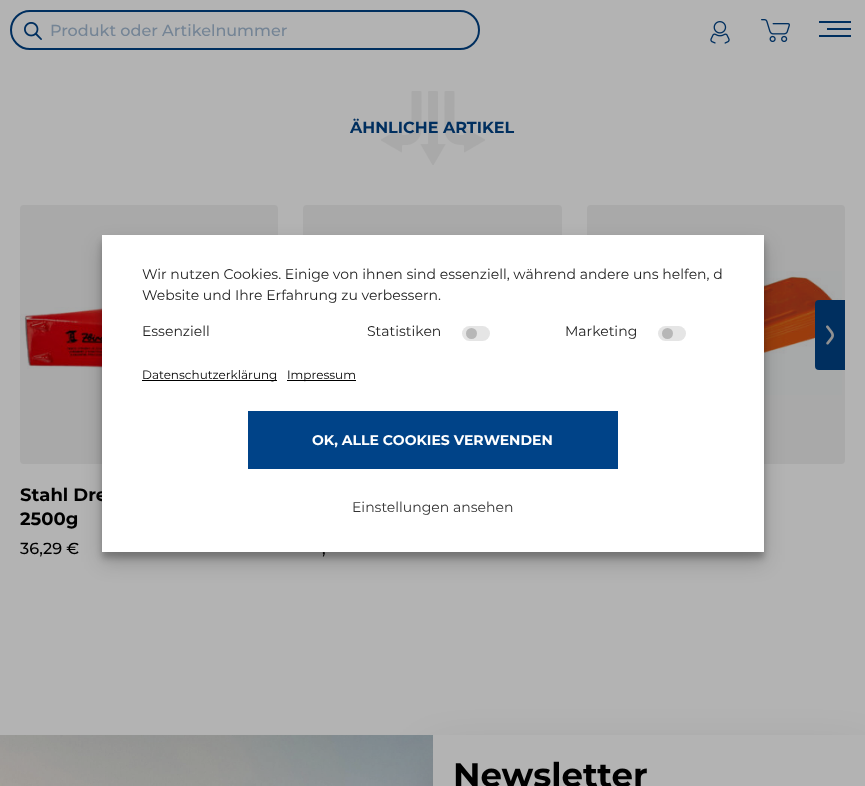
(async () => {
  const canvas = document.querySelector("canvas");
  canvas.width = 865;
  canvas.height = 786;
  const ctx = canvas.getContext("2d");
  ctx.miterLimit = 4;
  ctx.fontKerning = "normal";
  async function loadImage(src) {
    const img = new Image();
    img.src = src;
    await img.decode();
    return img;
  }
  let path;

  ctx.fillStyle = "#b3b3b3";
  ctx.fillRect(0, 0, 865, 786);
  ctx.beginPath();
  ctx.roundRect(11, 11, 468, 38, 19);
  ctx.strokeStyle = "#002f5f";
  ctx.lineWidth = 2;
  ctx.stroke();
  ctx.drawImage(await loadImage("img/1.png"), 24, 22, 18, 18);
  ctx.drawImage(await loadImage("img/2.png"), 710, 21, 20, 23);
  ctx.drawImage(await loadImage("img/3.png"), 761, 19, 29, 23);
  for (const [x, y, w, h, color] of [
    [827, 28, 24, 2, "#002f5f"],
    [819, 21, 32, 2, "#002f5f"],
    [819, 35, 32, 2, "#002f5f"],
  ]) {
    ctx.fillStyle = color;
    ctx.fillRect(x, y, w, h);
  }
  ctx.drawImage(await loadImage("img/4.png"), 381, 91, 104, 74);
  ctx.fillStyle = "#a9a9a9";
  ctx.beginPath();
  ctx.roundRect(587, 205, 258, 259, 4);
  ctx.fill();
  ctx.drawImage(await loadImage("img/6.png"), 764, 271, 78, 124);
  ctx.fillStyle = "#002f5f";
  ctx.beginPath();
  ctx.roundRect(815, 300, 30, 70, [4, 0, 0, 4]);
  ctx.fill();
  ctx.drawImage(await loadImage("img/5.png"), 826, 325, 8, 20);
  ctx.fillStyle = "#a9a9a9";
  ctx.beginPath();
  ctx.roundRect(20, 205, 258, 259, 4);
  ctx.fill();
  ctx.drawImage(await loadImage("img/7.png"), 20, 286, 82, 90);
  ctx.beginPath();
  ctx.roundRect(303, 205, 259, 259, 4);
  ctx.fill();
  ctx.fillStyle = "rgba(0, 0, 0, 0.23)";
  ctx.filter = "blur(3px)";
  ctx.beginPath();
  ctx.rect(102, 241, 662, 317);
  ctx.fill();
  ctx.filter = "none";
  ctx.fillStyle = "rgba(0, 0, 0, 0.19)";
  ctx.filter = "blur(10px)";
  ctx.beginPath();
  ctx.rect(102, 245, 662, 317);
  ctx.fill();
  ctx.filter = "none";
  ctx.drawImage(await loadImage("img/8.png"), 0, 735, 433, 51);
  ctx.save();
  path = new Path2D("M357 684H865V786H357ZM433 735H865V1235H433Z");
  ctx.clip(path, "evenodd");
  ctx.fillStyle = "rgba(0, 0, 0, 0.16)";
  ctx.filter = "blur(25px)";
  ctx.beginPath();
  ctx.rect(433, 760, 432, 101);
  ctx.fill();
  ctx.filter = "none";
  ctx.restore();
  ctx.font = "100 16px 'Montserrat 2'";
  ctx.fillStyle = "#748495";
  ctx.fillText("Produkt oder Artikelnummer", 50, 36);
  ctx.font = "100 16px Montserrat";
  ctx.fillStyle = "#002f5f";
  ctx.fillText("ÄHNLICHE ARTIKEL", 350, 133);
  ctx.font = "100 18px Montserrat";
  ctx.fillStyle = "#000000";
  ctx.fillText("Stahl Dre", 20, 501);
  ctx.fillText("2500g", 20, 525);
  ctx.font = "100 16px 'Montserrat 2'";
  ctx.fillText("36,29 €", 20, 554);
  ctx.fillText(",", 322, 554);
  ctx.fillStyle = "#ffffff";
  ctx.fillRect(102, 235, 662, 317);
  ctx.font = "14px Montserrat";
  ctx.fillStyle = "#222222";
  for (const [text, x, y] of [
    ["Wir nutzen Cookies. Einige von ihnen sind essenziell, während andere uns helfen, d", 142, 279],
    ["Website und Ihre Erfahrung zu verbessern.", 142, 300],
    ["Essenziell", 142, 336],
    ["Statistiken", 367, 336],
  ]) {
    ctx.fillText(text, x, y);
  }
  ctx.fillStyle = "#e5e5e5";
  ctx.beginPath();
  ctx.roundRect(462, 326, 28, 15, 7.5);
  ctx.fill();
  ctx.fillStyle = "#b7b7b7";
  ctx.beginPath();
  ctx.arc(471.5, 333.5, 5.5, 0, Math.PI * 2);
  ctx.fill();
  ctx.fillStyle = "#222222";
  ctx.fillText("Marketing", 565, 336);
  ctx.fillStyle = "#e5e5e5";
  ctx.beginPath();
  ctx.roundRect(658, 326, 28, 15, 7.5);
  ctx.fill();
  ctx.fillStyle = "#b7b7b7";
  ctx.beginPath();
  ctx.arc(667.5, 333.5, 5.5, 0, Math.PI * 2);
  ctx.fill();
  ctx.fillStyle = "#000000";
  ctx.fillRect(142, 380, 135, 1);
  ctx.font = "12px Montserrat";
  ctx.fillText("Datenschutzerklärung", 142, 379);
  ctx.fillRect(287, 380, 69, 1);
  ctx.fillText("Impressum", 287, 379);
  ctx.fillStyle = "#004388";
  ctx.fillRect(248, 411, 370, 58);
  ctx.font = "100 14px Montserrat";
  ctx.fillStyle = "#ffffff";
  ctx.fillText("OK, ALLE COOKIES VERWENDEN", 312, 445);
  ctx.font = "14px Montserrat";
  ctx.fillStyle = "#333333";
  ctx.fillText("Einstellungen ansehen", 352, 512);
  ctx.font = "100 34px Montserrat";
  ctx.fillStyle = "#000000";
  ctx.fillText("Newsletter", 453, 787);
})();
